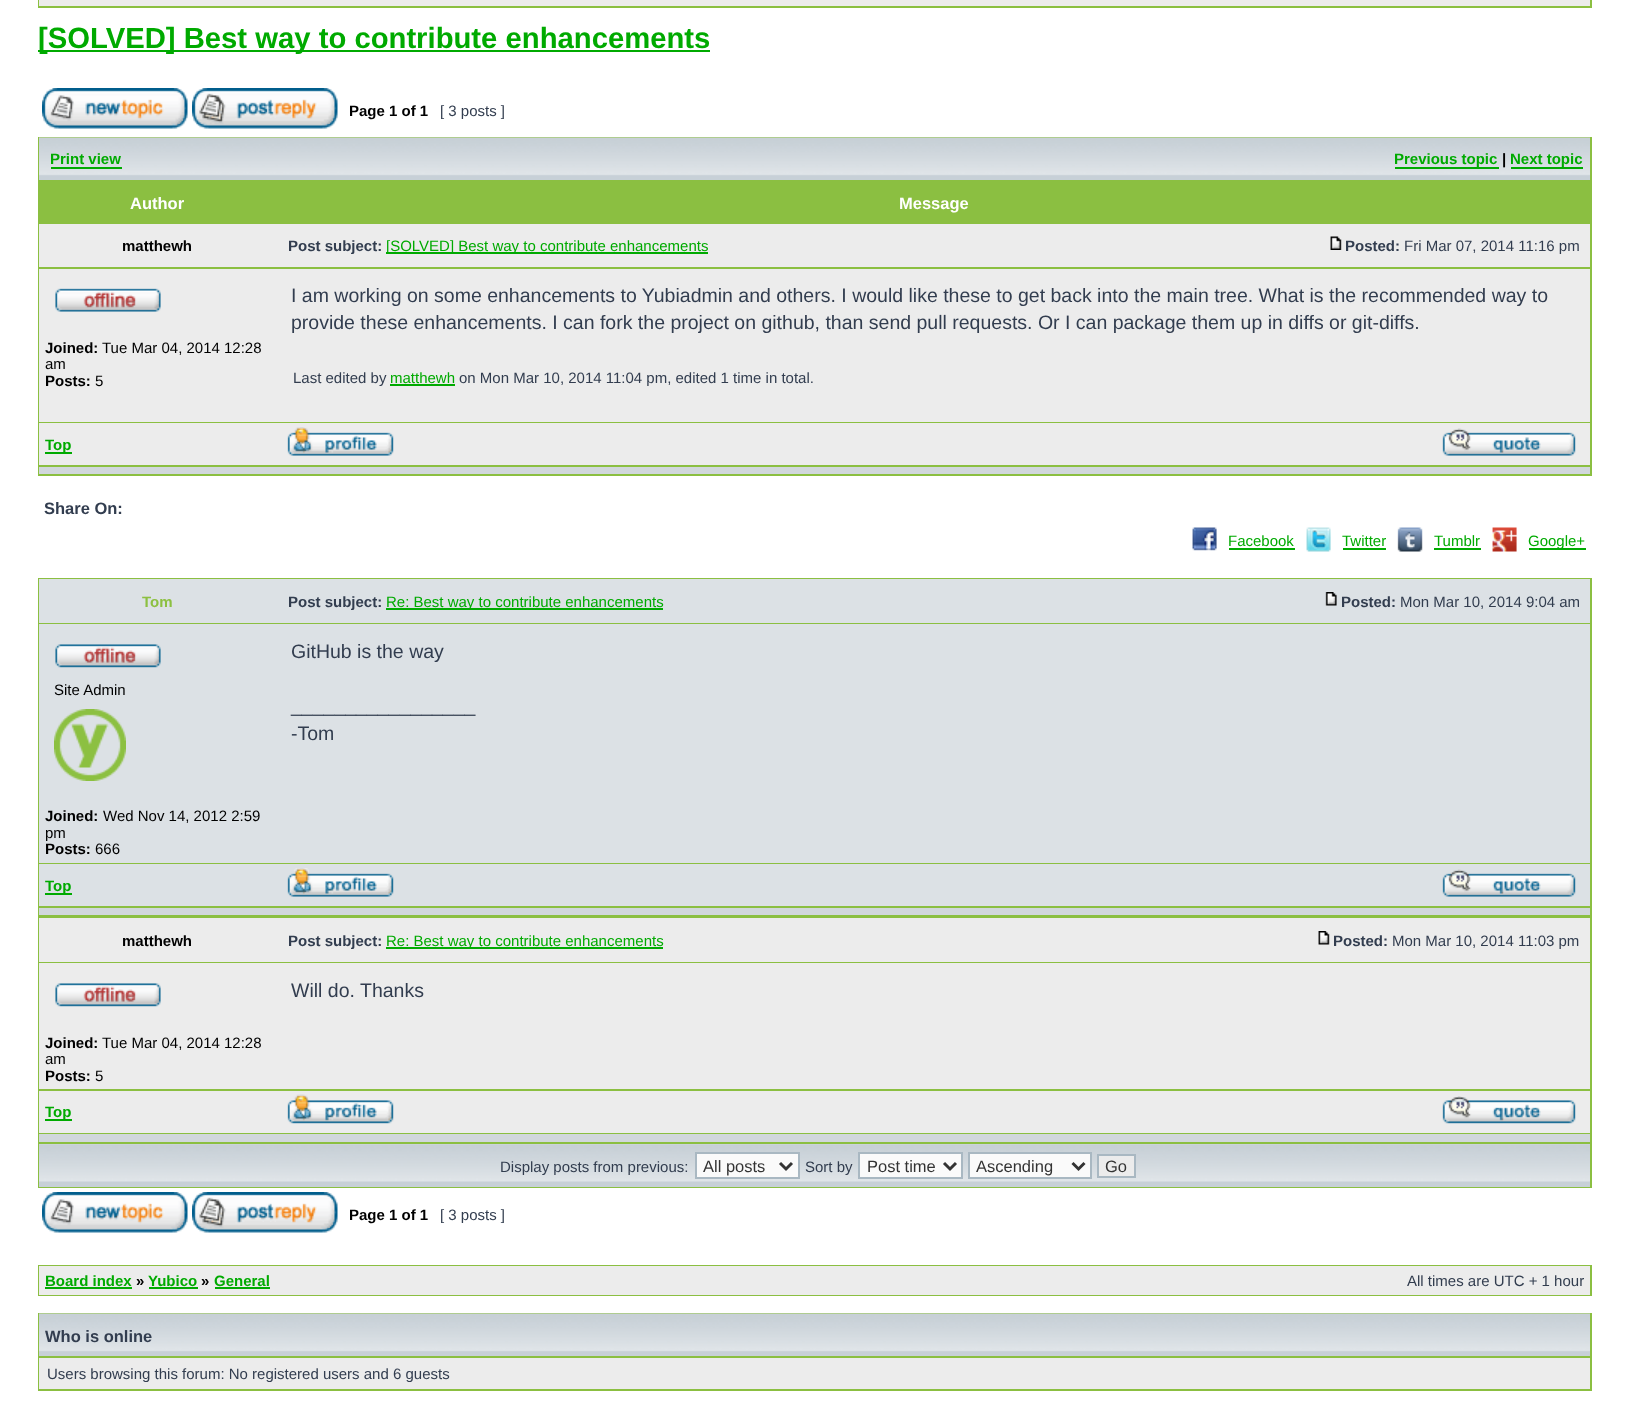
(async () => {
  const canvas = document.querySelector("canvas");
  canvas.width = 1628;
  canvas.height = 1416;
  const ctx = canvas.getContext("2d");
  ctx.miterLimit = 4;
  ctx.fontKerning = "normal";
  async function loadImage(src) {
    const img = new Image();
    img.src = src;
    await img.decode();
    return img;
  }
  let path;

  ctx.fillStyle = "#ffffff";
  ctx.fillRect(0, 0, 1628, 1416);
  for (const [x, y, w, h, color] of [
    [38, 0, 1554, 8, "#8bbf41"],
    [39, 0, 1551, 6, "#ececec"],
    [38, 50, 672, 2, "#00aa00"],
  ]) {
    ctx.fillStyle = color;
    ctx.fillRect(x, y, w, h);
  }
  ctx.drawImage(await loadImage("img/1.png"), 42, 88, 146, 41);
  ctx.drawImage(await loadImage("img/2.png"), 192, 88, 146, 41);
  ctx.fillStyle = "#8bbf41";
  ctx.fillRect(38, 137, 1554, 339);
  ctx.fillStyle = "#c7d0d7";
  ctx.fillRect(39, 176, 1551, 4);
  ctx.drawImage(await loadImage("img/3.png"), 39, 137, 1551, 39);
  for (const [x, y, w, h, color] of [
    [51, 167, 71, 2, "#00aa00"],
    [1395, 167, 104, 2, "#00aa00"],
    [1511, 167, 72, 2, "#00aa00"],
    [39, 224, 1551, 43, "#ececec"],
    [386, 252, 322, 2, "#00aa00"],
  ]) {
    ctx.fillStyle = color;
    ctx.fillRect(x, y, w, h);
  }
  ctx.drawImage(await loadImage("img/4.png"), 1330, 236, 12, 14);
  ctx.fillStyle = "#ececec";
  ctx.fillRect(39, 269, 1551, 153);
  ctx.drawImage(await loadImage("img/5.png"), 55, 288, 106, 24);
  for (const [x, y, w, h, color] of [
    [390, 384, 65, 2, "#00aa00"],
    [39, 423, 1551, 42, "#ececec"],
    [45, 452, 27, 2, "#00aa00"],
  ]) {
    ctx.fillStyle = color;
    ctx.fillRect(x, y, w, h);
  }
  ctx.drawImage(await loadImage("img/6.png"), 287, 427, 107, 29);
  ctx.drawImage(await loadImage("img/7.png"), 1442, 428, 134, 28);
  ctx.fillStyle = "#d1d7dc";
  ctx.fillRect(39, 467, 1551, 7);
  ctx.drawImage(await loadImage("img/8.png"), 1192, 527, 25, 24);
  ctx.fillStyle = "#00aa00";
  ctx.fillRect(1229, 548, 66, 2);
  ctx.drawImage(await loadImage("img/9.png"), 1306, 527, 25, 25);
  ctx.fillRect(1343, 548, 43, 2);
  ctx.drawImage(await loadImage("img/10.png"), 1397, 527, 26, 25);
  ctx.fillRect(1434, 548, 47, 2);
  ctx.drawImage(await loadImage("img/11.png"), 1492, 527, 25, 25);
  for (const [x, y, w, h, color] of [
    [1529, 548, 57, 2, "#00aa00"],
    [38, 578, 1554, 610, "#8bbf41"],
    [39, 579, 1551, 44, "#dce1e5"],
    [386, 608, 277, 2, "#00aa00"],
  ]) {
    ctx.fillStyle = color;
    ctx.fillRect(x, y, w, h);
  }
  ctx.drawImage(await loadImage("img/12.png"), 1325, 592, 12, 14);
  ctx.fillStyle = "#dce1e5";
  ctx.fillRect(39, 624, 1551, 239);
  ctx.drawImage(await loadImage("img/13.png"), 55, 644, 106, 24);
  ctx.drawImage(await loadImage("img/14.png"), 54, 709, 72, 72);
  ctx.fillRect(39, 864, 1551, 42);
  ctx.fillStyle = "#00aa00";
  ctx.fillRect(45, 893, 27, 2);
  ctx.drawImage(await loadImage("img/15.png"), 287, 868, 107, 29);
  ctx.drawImage(await loadImage("img/16.png"), 1442, 869, 134, 28);
  for (const [x, y, w, h, color] of [
    [39, 908, 1551, 7, "#d1d7dc"],
    [39, 918, 1551, 44, "#ececec"],
    [386, 947, 277, 2, "#00aa00"],
  ]) {
    ctx.fillStyle = color;
    ctx.fillRect(x, y, w, h);
  }
  ctx.drawImage(await loadImage("img/17.png"), 1318, 931, 12, 14);
  ctx.fillStyle = "#ececec";
  ctx.fillRect(39, 963, 1551, 126);
  ctx.drawImage(await loadImage("img/18.png"), 55, 983, 106, 24);
  ctx.fillRect(39, 1091, 1551, 42);
  ctx.fillStyle = "#00aa00";
  ctx.fillRect(45, 1119, 27, 2);
  ctx.drawImage(await loadImage("img/19.png"), 287, 1094, 107, 30);
  ctx.drawImage(await loadImage("img/20.png"), 1442, 1096, 134, 28);
  ctx.fillStyle = "#d1d7dc";
  ctx.fillRect(39, 1134, 1551, 8);
  ctx.fillStyle = "#c7d0d7";
  ctx.fillRect(39, 1182, 1551, 5);
  ctx.drawImage(await loadImage("img/21.png"), 39, 1144, 1551, 38);
  ctx.fillStyle = "#fafafa";
  ctx.beginPath();
  ctx.rect(696, 1153, 103, 25);
  ctx.fill();
  ctx.strokeStyle = "#a9b8c2";
  ctx.lineWidth = 2;
  ctx.stroke();
  path = new Path2D("M780 1163L786 1169L792 1163");
  ctx.strokeStyle = "#333333";
  ctx.lineWidth = 3;
  ctx.stroke(path);
  ctx.beginPath();
  ctx.rect(859, 1153, 103, 25);
  ctx.fill();
  ctx.strokeStyle = "#a9b8c2";
  ctx.lineWidth = 2;
  ctx.stroke();
  path = new Path2D("M944 1163L950 1169L956 1163");
  ctx.strokeStyle = "#333333";
  ctx.lineWidth = 3;
  ctx.stroke(path);
  ctx.beginPath();
  ctx.rect(969, 1153, 122, 25);
  ctx.fill();
  ctx.strokeStyle = "#a9b8c2";
  ctx.lineWidth = 2;
  ctx.stroke();
  path = new Path2D("M1072.5 1163L1078.5 1169L1084.5 1163");
  ctx.strokeStyle = "#333333";
  ctx.lineWidth = 3;
  ctx.stroke(path);
  ctx.fillStyle = "#ececec";
  ctx.beginPath();
  ctx.rect(1098, 1155, 37, 22);
  ctx.fill();
  ctx.strokeStyle = "#a9b8c2";
  ctx.lineWidth = 2;
  ctx.stroke();
  ctx.drawImage(await loadImage("img/1.png"), 42, 1192, 146, 41);
  ctx.drawImage(await loadImage("img/2.png"), 192, 1192, 146, 41);
  for (const [x, y, w, h, color] of [
    [38, 1265, 1554, 31, "#8bbf41"],
    [39, 1266, 1551, 29, "#ececec"],
    [45, 1287, 87, 2, "#00aa00"],
    [149, 1287, 49, 2, "#00aa00"],
    [215, 1287, 55, 2, "#00aa00"],
    [38, 1313, 1554, 78, "#8bbf41"],
    [39, 1352, 1551, 4, "#c7d0d7"],
  ]) {
    ctx.fillStyle = color;
    ctx.fillRect(x, y, w, h);
  }
  ctx.drawImage(await loadImage("img/3.png"), 39, 1313, 1551, 39);
  ctx.fillStyle = "#ececec";
  ctx.fillRect(39, 1358, 1551, 31);
  ctx.font = "bold 29.25px Liberation Sans";
  ctx.fillStyle = "#00aa00";
  ctx.fillText("[SOLVED] Best way to contribute enhancements", 38, 48);
  ctx.font = "bold 15px Liberation Sans";
  ctx.fillStyle = "#000000";
  ctx.fillText("Page 1 of 1", 349, 116);
  ctx.font = "15px Liberation Sans";
  ctx.fillStyle = "#323d4f";
  ctx.fillText("[ 3 posts ]", 440, 116);
  ctx.font = "bold 15px Liberation Sans";
  ctx.fillStyle = "#00aa00";
  ctx.fillText("Print view", 50, 164);
  ctx.fillText("Previous topic", 1394, 164);
  ctx.fillStyle = "#000000";
  ctx.fillText("|", 1502, 164);
  ctx.fillStyle = "#00aa00";
  ctx.fillText("Next topic", 1510, 164);
  ctx.font = "bold 16.5px Liberation Sans";
  ctx.fillStyle = "#ffffff";
  ctx.fillText("Author", 130, 209);
  ctx.fillText("Message", 899, 209);
  ctx.font = "bold 15px Liberation Sans";
  ctx.fillStyle = "#000000";
  ctx.fillText("matthewh", 122, 251);
  ctx.fillStyle = "#323d4f";
  ctx.fillText("Post subject:", 288, 251);
  ctx.font = "15px Liberation Sans";
  ctx.fillStyle = "#00aa00";
  ctx.fillText("[SOLVED] Best way to contribute enhancements", 386, 251);
  ctx.font = "bold 15px Liberation Sans";
  ctx.fillStyle = "#323d4f";
  ctx.fillText("Posted:", 1345, 251);
  ctx.font = "15px Liberation Sans";
  ctx.fillText("Fri Mar 07, 2014 11:16 pm", 1404, 251);
  ctx.font = "bold 15px Liberation Sans";
  ctx.fillStyle = "#000000";
  ctx.fillText("Joined:", 45, 353);
  ctx.font = "15px Liberation Sans";
  ctx.fillText("Tue Mar 04, 2014 12:28", 102, 353);
  ctx.fillText("am", 45, 369);
  ctx.font = "bold 15px Liberation Sans";
  ctx.fillText("Posts:", 45, 386);
  ctx.font = "15px Liberation Sans";
  ctx.fillText("5", 95, 386);
  ctx.font = "19.5px Liberation Sans";
  ctx.fillStyle = "#323d4f";
  ctx.fillText("I am working on some enhancements to Yubiadmin and others. I would like these to get back into the main tree. What is the recommended way to", 291, 302);
  ctx.fillText("provide these enhancements. I can fork the project on github, than send pull requests. Or I can package them up in diffs or git-diffs.", 291, 329);
  ctx.font = "15px Liberation Sans";
  ctx.fillText("Last edited by", 293, 383);
  ctx.fillStyle = "#00aa00";
  ctx.fillText("matthewh", 390, 383);
  ctx.fillStyle = "#323d4f";
  ctx.fillText("on Mon Mar 10, 2014 11:04 pm, edited 1 time in total.", 459, 383);
  ctx.font = "bold 15px Liberation Sans";
  ctx.fillStyle = "#00aa00";
  ctx.fillText("Top", 45, 450);
  ctx.font = "bold 16.5px Liberation Sans";
  ctx.fillStyle = "#323d4f";
  ctx.fillText("Share On:", 44, 514);
  ctx.font = "15px Liberation Sans";
  ctx.fillStyle = "#00aa00";
  for (const [text, x, y] of [
    ["Facebook", 1228, 546],
    ["Twitter", 1342, 546],
    ["Tumblr", 1434, 546],
    ["Google+", 1528, 546],
  ]) {
    ctx.fillText(text, x, y);
  }
  ctx.font = "bold 15px Liberation Sans";
  ctx.fillStyle = "#8cc041";
  ctx.fillText("Tom", 142, 607);
  ctx.fillStyle = "#323d4f";
  ctx.fillText("Post subject:", 288, 607);
  ctx.font = "15px Liberation Sans";
  ctx.fillStyle = "#00aa00";
  ctx.fillText("Re: Best way to contribute enhancements", 386, 607);
  ctx.font = "bold 15px Liberation Sans";
  ctx.fillStyle = "#323d4f";
  ctx.fillText("Posted:", 1341, 607);
  ctx.font = "15px Liberation Sans";
  ctx.fillText("Mon Mar 10, 2014 9:04 am", 1400, 607);
  ctx.fillStyle = "#000000";
  ctx.fillText("Site Admin", 54, 695);
  ctx.font = "bold 15px Liberation Sans";
  ctx.fillText("Joined:", 45, 821);
  ctx.font = "15px Liberation Sans";
  ctx.fillText("Wed Nov 14, 2012 2:59", 103, 821);
  ctx.fillText("pm", 45, 838);
  ctx.font = "bold 15px Liberation Sans";
  ctx.fillText("Posts:", 45, 854);
  ctx.font = "15px Liberation Sans";
  ctx.fillText("666", 95, 854);
  ctx.font = "19.5px Liberation Sans";
  ctx.fillStyle = "#323d4f";
  for (const [text, x, y] of [
    ["GitHub is the way", 291, 658],
    ["_________________", 291, 712],
    ["-Tom", 291, 740],
  ]) {
    ctx.fillText(text, x, y);
  }
  ctx.font = "bold 15px Liberation Sans";
  ctx.fillStyle = "#00aa00";
  ctx.fillText("Top", 45, 891);
  ctx.fillStyle = "#000000";
  ctx.fillText("matthewh", 122, 946);
  ctx.fillStyle = "#323d4f";
  ctx.fillText("Post subject:", 288, 946);
  ctx.font = "15px Liberation Sans";
  ctx.fillStyle = "#00aa00";
  ctx.fillText("Re: Best way to contribute enhancements", 386, 946);
  ctx.font = "bold 15px Liberation Sans";
  ctx.fillStyle = "#323d4f";
  ctx.fillText("Posted:", 1333, 946);
  ctx.font = "15px Liberation Sans";
  ctx.fillText("Mon Mar 10, 2014 11:03 pm", 1392, 946);
  ctx.font = "19.5px Liberation Sans";
  ctx.fillText("Will do. Thanks", 291, 997);
  ctx.font = "bold 15px Liberation Sans";
  ctx.fillStyle = "#000000";
  ctx.fillText("Joined:", 45, 1048);
  ctx.font = "15px Liberation Sans";
  ctx.fillText("Tue Mar 04, 2014 12:28", 102, 1048);
  ctx.fillText("am", 45, 1064);
  ctx.font = "bold 15px Liberation Sans";
  ctx.fillText("Posts:", 45, 1081);
  ctx.font = "15px Liberation Sans";
  ctx.fillText("5", 95, 1081);
  ctx.font = "bold 15px Liberation Sans";
  ctx.fillStyle = "#00aa00";
  ctx.fillText("Top", 45, 1117);
  ctx.font = "15px Liberation Sans";
  ctx.fillStyle = "#323d4f";
  ctx.fillText("Display posts from previous:", 500, 1172);
  ctx.font = "16.5px Liberation Sans";
  ctx.fillStyle = "#333333";
  ctx.fillText("All posts", 703, 1172);
  ctx.font = "15px Liberation Sans";
  ctx.fillStyle = "#323d4f";
  ctx.fillText("Sort by", 805, 1172);
  ctx.font = "16.5px Liberation Sans";
  ctx.fillStyle = "#333333";
  for (const [text, x, y] of [
    ["Post time", 867, 1172],
    ["Ascending", 976, 1172],
    ["Go", 1105, 1172],
  ]) {
    ctx.fillText(text, x, y);
  }
  ctx.font = "bold 15px Liberation Sans";
  ctx.fillStyle = "#000000";
  ctx.fillText("Page 1 of 1", 349, 1220);
  ctx.font = "15px Liberation Sans";
  ctx.fillStyle = "#323d4f";
  ctx.fillText("[ 3 posts ]", 440, 1220);
  ctx.font = "bold 15px Liberation Sans";
  ctx.fillStyle = "#00aa00";
  ctx.fillText("Board index", 45, 1286);
  ctx.fillStyle = "#000000";
  ctx.fillText("»", 136, 1286);
  ctx.fillStyle = "#00aa00";
  ctx.fillText("Yubico", 148, 1286);
  ctx.fillStyle = "#000000";
  ctx.fillText("»", 201, 1286);
  ctx.fillStyle = "#00aa00";
  ctx.fillText("General", 214, 1286);
  ctx.font = "15px Liberation Sans";
  ctx.fillStyle = "#323d4f";
  ctx.fillText("All times are UTC + 1 hour", 1407, 1286);
  ctx.font = "bold 16.5px Liberation Sans";
  ctx.fillText("Who is online", 45, 1342);
  ctx.font = "15px Liberation Sans";
  ctx.fillText("Users browsing this forum: No registered users and 6 guests", 47, 1379);
})();
